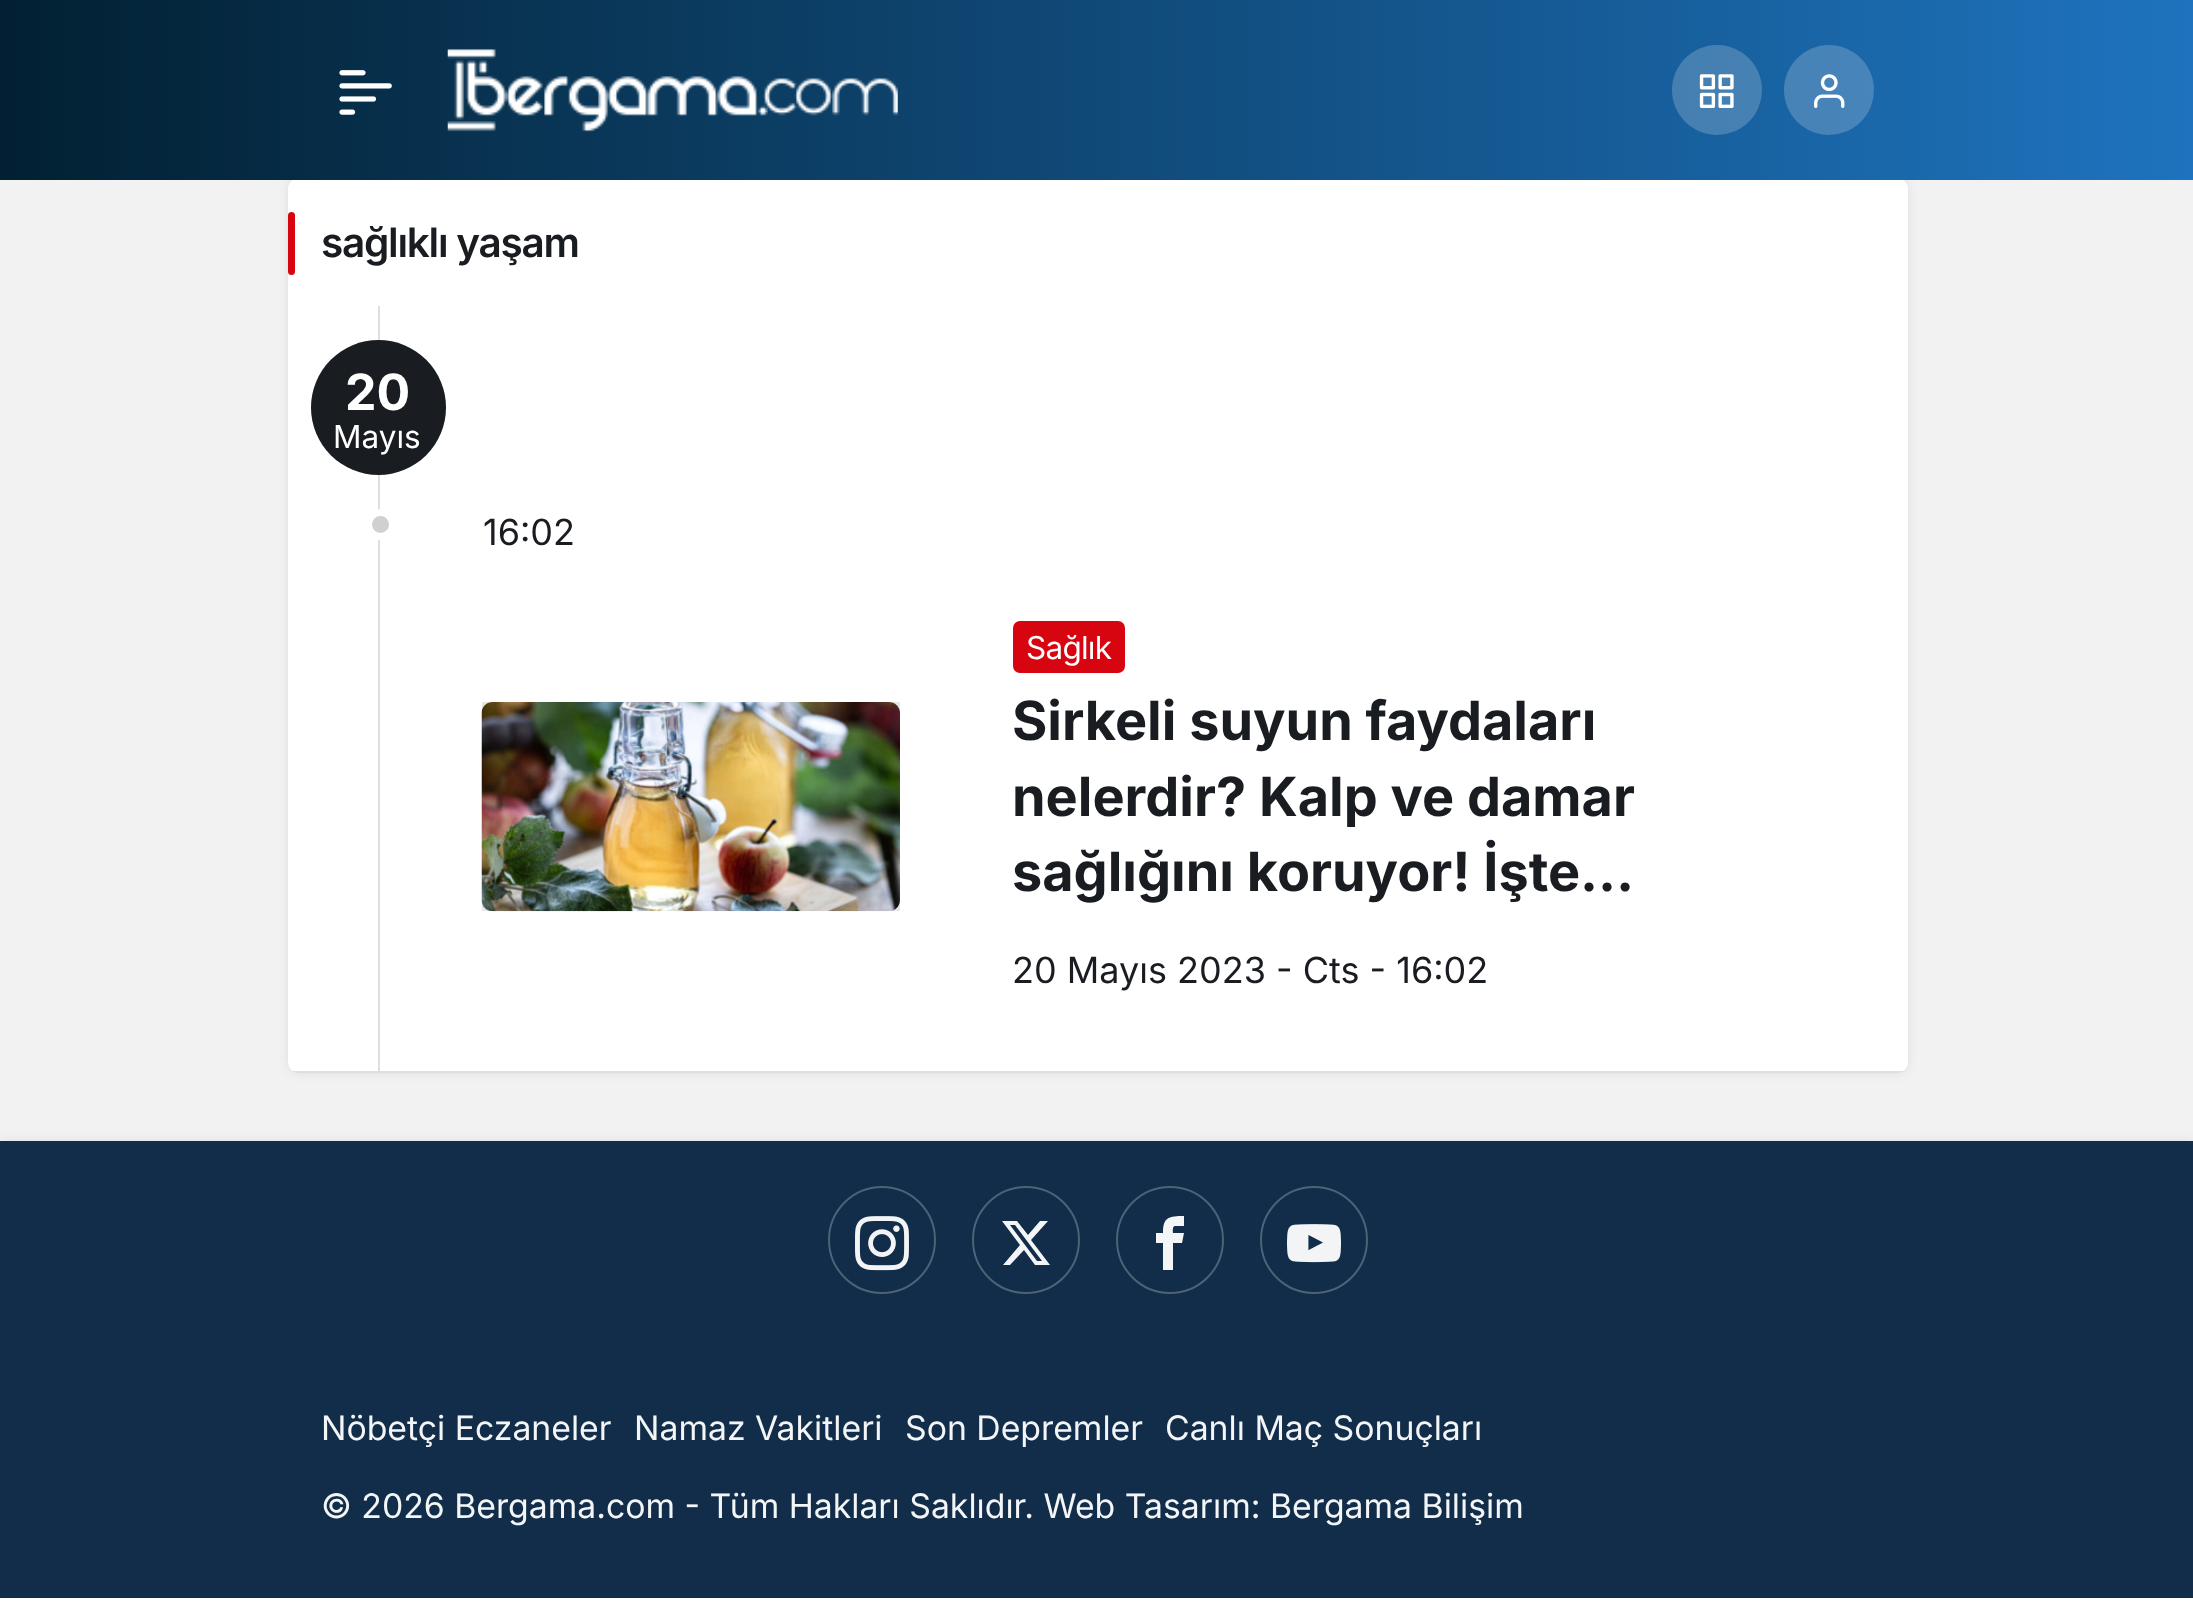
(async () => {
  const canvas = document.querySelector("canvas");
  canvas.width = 2193;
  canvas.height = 1609;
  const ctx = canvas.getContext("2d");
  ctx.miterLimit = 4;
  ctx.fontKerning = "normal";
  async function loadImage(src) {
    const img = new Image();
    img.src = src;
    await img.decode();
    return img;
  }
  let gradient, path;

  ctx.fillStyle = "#ffffff";
  ctx.fillRect(0, 0, 2193, 1609);
  ctx.fillStyle = "#f2f2f3";
  ctx.fillRect(0, 180, 2193, 961);
  ctx.fillStyle = "rgba(50, 53, 61, 0.1)";
  ctx.filter = "blur(5.5px)";
  ctx.beginPath();
  ctx.roundRect(288, 178, 1620, 895, 11);
  ctx.fill();
  ctx.filter = "none";
  ctx.fillStyle = "#ffffff";
  ctx.beginPath();
  ctx.roundRect(288, 178, 1620, 895, 11);
  ctx.fill();
  gradient = ctx.createLinearGradient(0, 90, 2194, 90);
  gradient.addColorStop(0, "#022032");
  gradient.addColorStop(1, "#1e73be");
  ctx.fillStyle = gradient;
  ctx.fillRect(0, 0, 2193, 180);
  ctx.drawImage(await loadImage("img/1.png"), 339, 70, 53, 45);
  ctx.drawImage(await loadImage("img/2.png"), 447, 49, 451, 83);
  ctx.fillStyle = "rgba(255, 255, 255, 0.2)";
  ctx.beginPath();
  ctx.arc(1717, 90, 45, 0, Math.PI * 2);
  ctx.fill();
  ctx.drawImage(await loadImage("img/3.png"), 1699, 74, 35, 34);
  ctx.beginPath();
  ctx.arc(1829, 90, 45, 0, Math.PI * 2);
  ctx.fill();
  ctx.drawImage(await loadImage("img/4.png"), 1814, 74, 31, 34);
  ctx.fillStyle = "#d7050f";
  ctx.beginPath();
  ctx.roundRect(288, 212, 7, 63, 3.5);
  ctx.fill();
  ctx.save();
  ctx.beginPath();
  ctx.roundRect(288, 178, 1620, 895, 11);
  ctx.clip();
  ctx.fillStyle = "rgba(91, 97, 110, 0.2)";
  ctx.fillRect(288, 1071, 1620, 2);
  ctx.restore();
  ctx.fillStyle = "#dedfe2";
  ctx.fillRect(378, 306, 2, 765);
  ctx.fillStyle = "#191c20";
  ctx.beginPath();
  ctx.arc(378.5, 407.5, 67.5, 0, Math.PI * 2);
  ctx.fill();
  ctx.fillStyle = "#d0d0d0";
  ctx.beginPath();
  ctx.arc(380.5, 524.5, 12, 0, Math.PI * 2);
  ctx.fill();
  ctx.strokeStyle = "#ffffff";
  ctx.lineWidth = 7;
  ctx.stroke();
  ctx.fillStyle = "#e6e6e6";
  ctx.fillRect(482, 702, 418, 209);
  ctx.drawImage(await loadImage("img/5.png"), 481, 702, 419, 210);
  ctx.fillStyle = "#d7050f";
  ctx.beginPath();
  ctx.roundRect(1013, 621, 112, 52, 7);
  ctx.fill();
  ctx.save();
  ctx.beginPath();
  ctx.rect(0, 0, 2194, 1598);
  ctx.clip();
  ctx.fillStyle = "rgba(50, 53, 61, 0.1)";
  ctx.filter = "blur(5.5px)";
  ctx.beginPath();
  ctx.rect(0, 1141, 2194, 457);
  ctx.fill();
  ctx.filter = "none";
  ctx.restore();
  ctx.fillStyle = "#122d4a";
  ctx.fillRect(0, 1141, 2193, 457);
  ctx.beginPath();
  ctx.arc(882, 1240, 53, 0, Math.PI * 2);
  ctx.strokeStyle = "#4d6277";
  ctx.lineWidth = 2;
  ctx.stroke();
  ctx.drawImage(await loadImage("img/6.png"), 855, 1216, 54, 55);
  ctx.beginPath();
  ctx.arc(1026, 1240, 53, 0, Math.PI * 2);
  ctx.stroke();
  ctx.fillStyle = "#f3f5f6";
  path = new Path2D("M1040 1221H1048L1031 1240L1050 1265H1035L1024 1250L1010 1265H1003L1020 1245L1002 1221H1017L1028 1235ZM1037 1261H1042L1015 1225H1010Z");
  ctx.fill(path);
  ctx.beginPath();
  ctx.arc(1170, 1240, 53, 0, Math.PI * 2);
  ctx.stroke();
  path = new Path2D("M1175 1226H1184V1216C1169 1216 1163 1217 1163 1233H1156V1243H1163V1270H1173V1243H1182L1184 1233H1173C1173 1232 1172 1226 1175 1226Z");
  ctx.fill(path);
  ctx.beginPath();
  ctx.arc(1314, 1240, 53, 0, Math.PI * 2);
  ctx.stroke();
  ctx.drawImage(await loadImage("img/7.png"), 1287, 1224, 54, 39);
  ctx.letterSpacing = "-1.25px";
  ctx.font = "600 40.5px Inter";
  ctx.fillStyle = "#191c20";
  ctx.fillText("sağlıklı yaşam", 321, 257);
  ctx.letterSpacing = "0px";
  ctx.font = "bold 50px Inter";
  ctx.fillStyle = "#ffffff";
  ctx.fillText("20", 345, 410);
  ctx.font = "31.5px Inter";
  ctx.fillText("Mayıs", 333, 448);
  ctx.font = "36px Inter";
  ctx.fillStyle = "#191c20";
  ctx.fillText("16:02", 483, 545);
  ctx.letterSpacing = "-0.75px";
  ctx.font = "31.5px Inter";
  ctx.fillStyle = "#ffffff";
  ctx.fillText("Sağlık", 1026, 659);
  ctx.letterSpacing = "0px";
  ctx.font = "bold 54px Inter";
  ctx.fillStyle = "#191c20";
  for (const [text, x, y] of [
    ["Sirkeli suyun faydaları", 1012, 740],
    ["nelerdir? Kalp ve damar", 1012, 816],
    ["sağlığını koruyor! İşte…", 1012, 891],
  ]) {
    ctx.fillText(text, x, y);
  }
  ctx.font = "36px Inter";
  ctx.fillText("20 Mayıs 2023 - Cts - 16:02", 1012, 983);
  ctx.font = "33.75px Inter";
  ctx.fillStyle = "#f3f5f6";
  for (const [text, x, y] of [
    ["Nöbetçi Eczaneler", 321, 1440],
    ["Namaz Vakitleri", 634, 1440],
    ["Son Depremler", 905, 1440],
    ["Canlı Maç Sonuçları", 1165, 1440],
    ["© 2026 Bergama.com - Tüm Hakları Saklıdır. Web Tasarım: Bergama Bilişim", 321, 1518],
  ]) {
    ctx.fillText(text, x, y);
  }
})();
